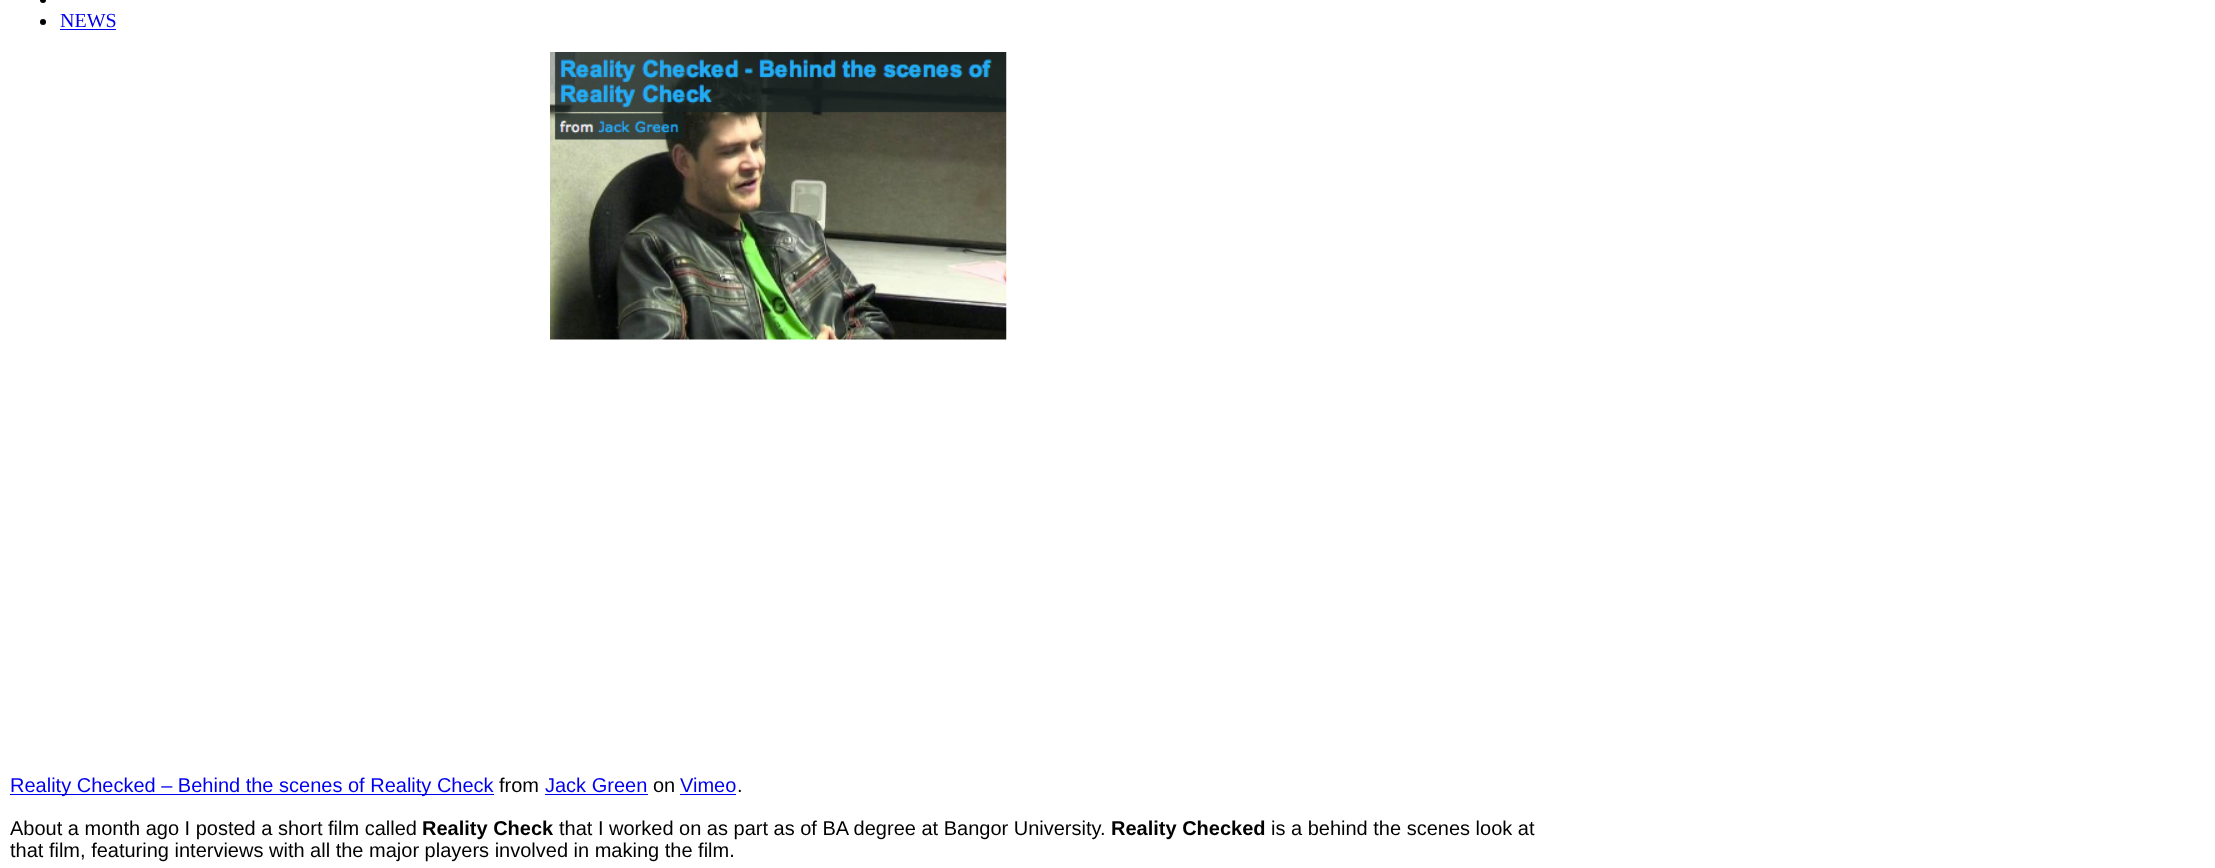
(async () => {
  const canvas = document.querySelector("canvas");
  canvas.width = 2215;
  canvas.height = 868;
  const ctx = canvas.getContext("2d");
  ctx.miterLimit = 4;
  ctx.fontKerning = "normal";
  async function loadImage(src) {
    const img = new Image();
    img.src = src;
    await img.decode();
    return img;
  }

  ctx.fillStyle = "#ffffff";
  ctx.fillRect(0, 0, 2215, 868);
  ctx.fillStyle = "#000000";
  ctx.beginPath();
  ctx.arc(43, 0, 3, 0, Math.PI * 2);
  ctx.fill();
  ctx.beginPath();
  ctx.arc(43, 22, 3, 0, Math.PI * 2);
  ctx.fill();
  ctx.fillStyle = "#0000ee";
  ctx.fillRect(60, 29, 56, 1);
  ctx.drawImage(await loadImage("img/1.png"), 550, 52, 457, 288);
  for (const [x, y, w, h, color] of [
    [10, 794, 484, 1, "#0000ee"],
    [545, 794, 103, 1, "#0000ee"],
    [680, 794, 56, 1, "#0000ee"],
  ]) {
    ctx.fillStyle = color;
    ctx.fillRect(x, y, w, h);
  }
  ctx.font = "20px Liberation Serif";
  ctx.fillText("NEWS", 60, 27);
  ctx.font = "20px Liberation Sans";
  ctx.fillText("Reality Checked – Behind the scenes of Reality Check", 10, 792);
  ctx.fillStyle = "#000000";
  ctx.fillText("from", 499, 792);
  ctx.fillStyle = "#0000ee";
  ctx.fillText("Jack Green", 545, 792);
  ctx.fillStyle = "#000000";
  ctx.fillText("on", 653, 792);
  ctx.fillStyle = "#0000ee";
  ctx.fillText("Vimeo", 680, 792);
  ctx.fillStyle = "#000000";
  ctx.fillText(".", 737, 792);
  ctx.fillText("About a month ago I posted a short film called", 10, 835);
  ctx.font = "bold 20px Liberation Sans";
  ctx.fillText("Reality Check", 422, 835);
  ctx.font = "20px Liberation Sans";
  ctx.fillText("that I worked on as part as of BA degree at Bangor University.", 559, 835);
  ctx.font = "bold 20px Liberation Sans";
  ctx.fillText("Reality Checked", 1111, 835);
  ctx.font = "20px Liberation Sans";
  ctx.fillText("is a behind the scenes look at", 1271, 835);
  ctx.fillText("that film, featuring interviews with all the major players involved in making the film.", 10, 857);
})();
